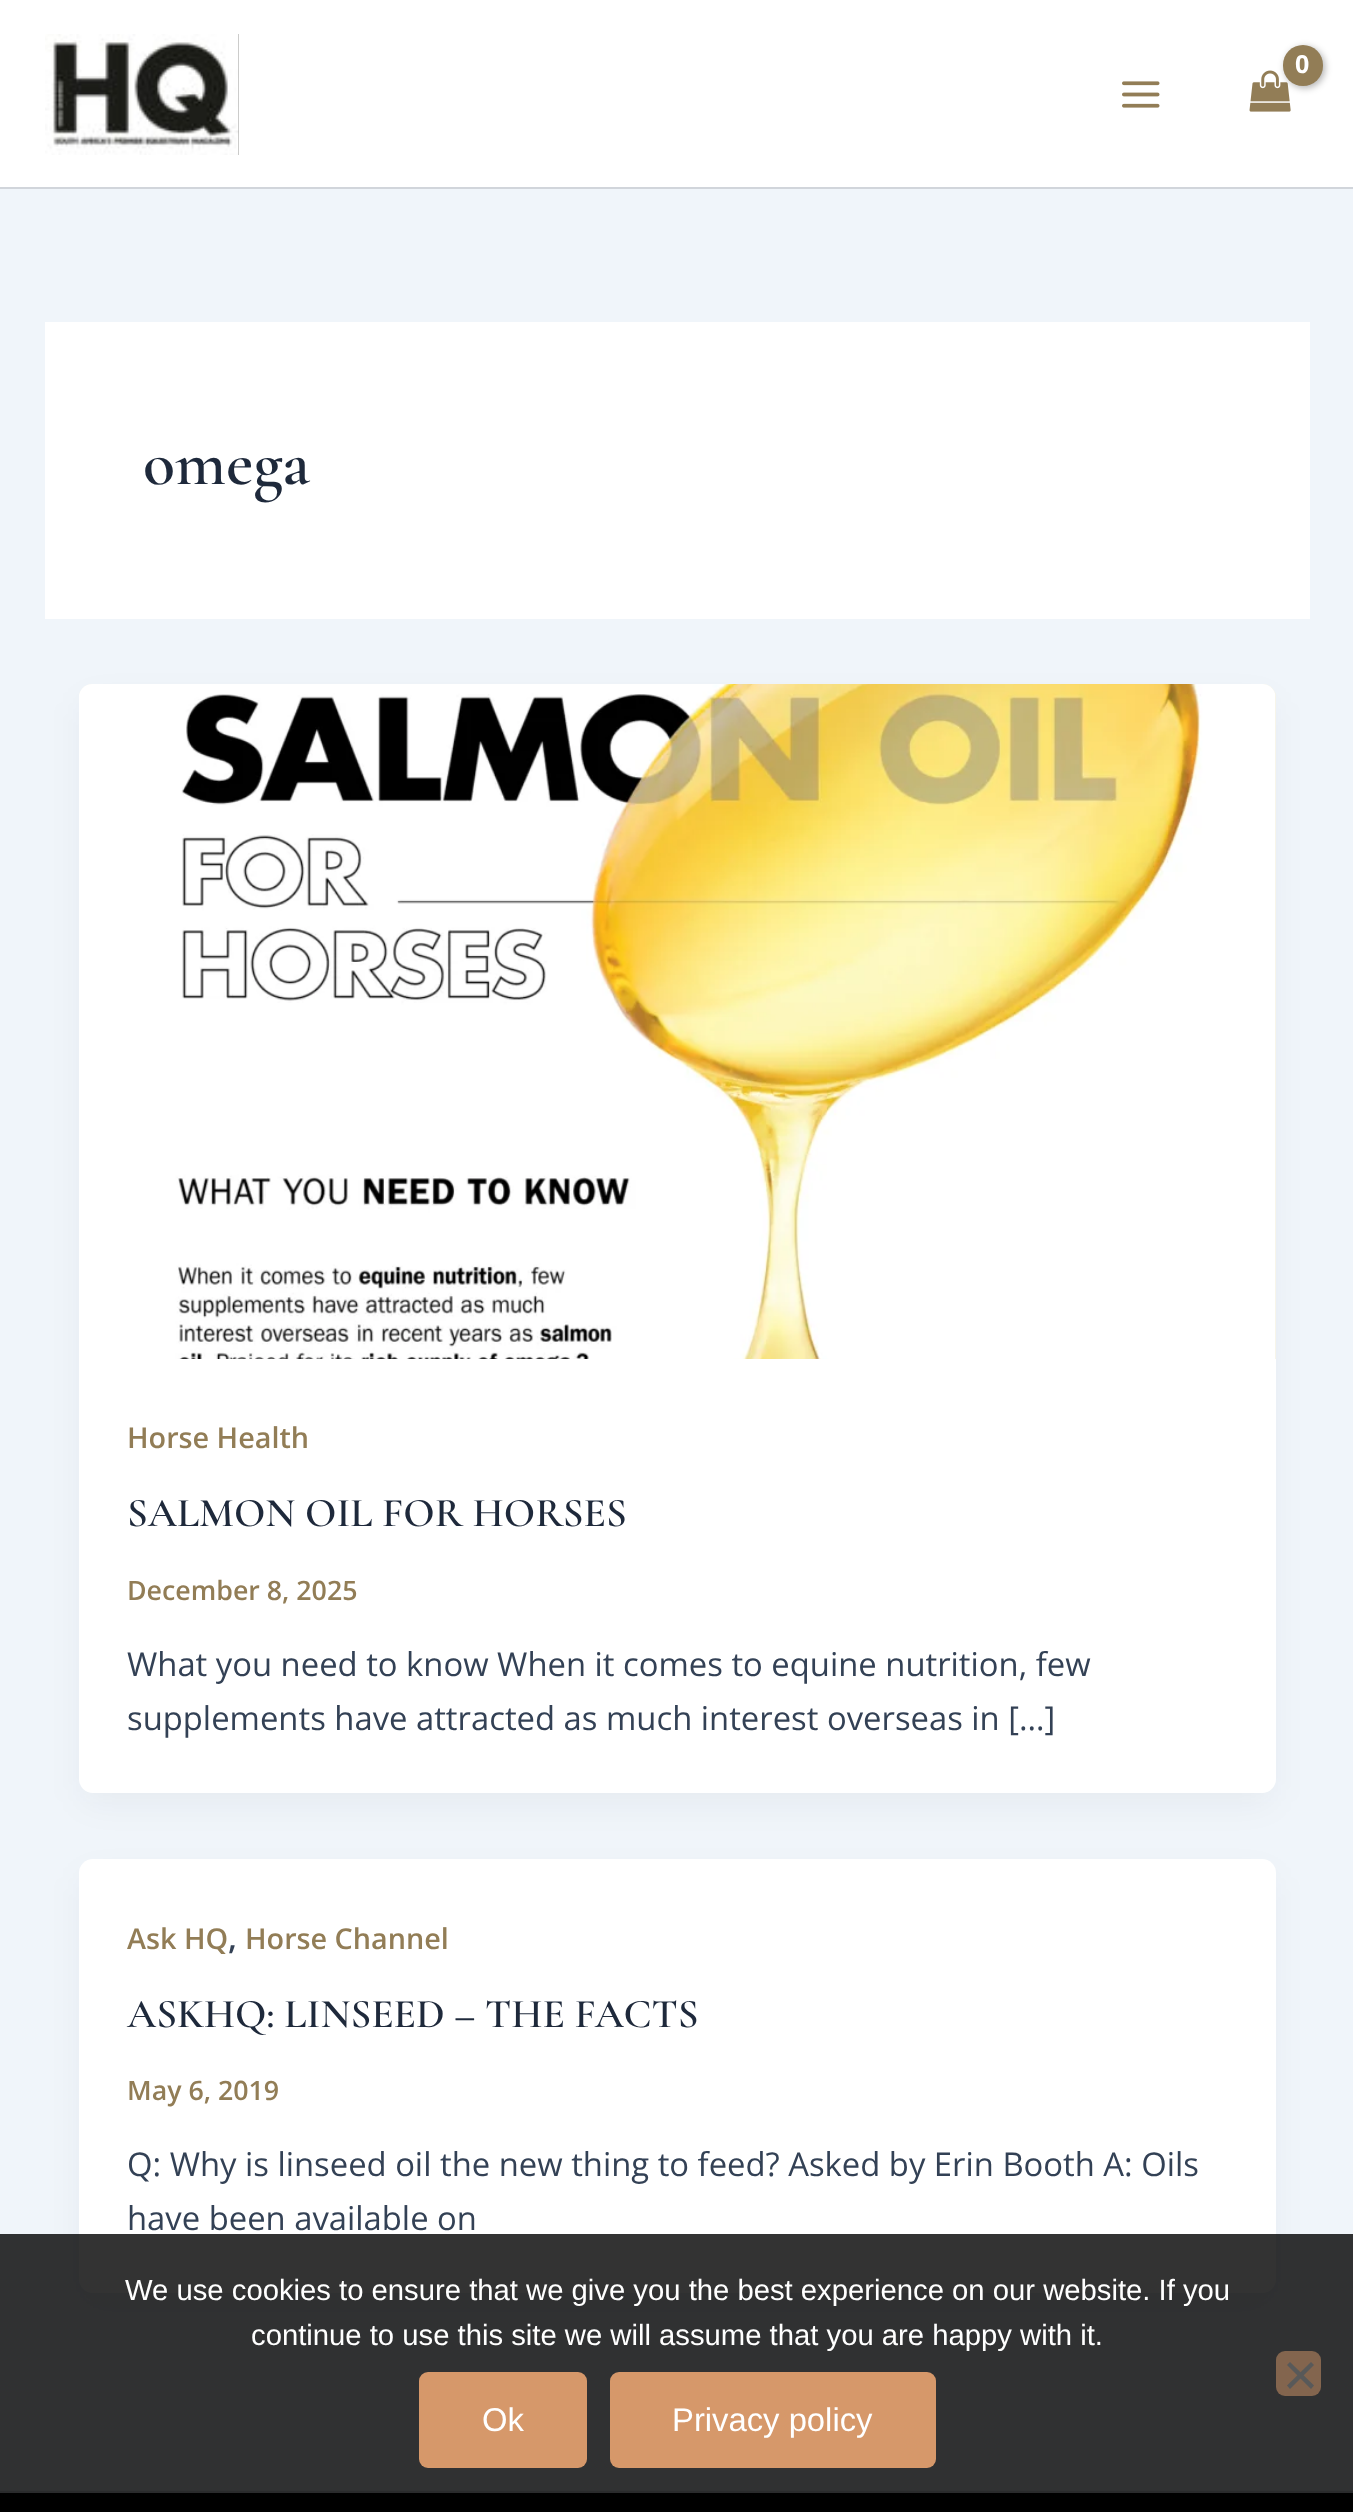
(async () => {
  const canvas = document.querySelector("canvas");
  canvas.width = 1353;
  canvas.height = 2512;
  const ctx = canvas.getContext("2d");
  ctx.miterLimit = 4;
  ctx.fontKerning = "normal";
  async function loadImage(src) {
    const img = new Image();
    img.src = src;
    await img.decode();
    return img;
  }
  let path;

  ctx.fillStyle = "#f0f5fa";
  ctx.fillRect(0, 0, 1353, 2512);
  for (const [x, y, w, h, color] of [
    [0, 0, 1353, 187, "#ffffff"],
    [0, 187, 1353, 2, "#d1d5db"],
    [238, 34, 1, 121, "#989997"],
  ]) {
    ctx.fillStyle = color;
    ctx.fillRect(x, y, w, h);
  }
  ctx.drawImage(await loadImage("img/1.png"), 45, 34, 194, 121);
  ctx.drawImage(await loadImage("img/2.png"), 1249, 70, 42, 42);
  ctx.fillStyle = "rgba(0, 0, 0, 0.3)";
  ctx.filter = "blur(3.5px)";
  ctx.beginPath();
  ctx.roundRect(1285, 47, 40, 41, 20);
  ctx.fill();
  ctx.filter = "none";
  ctx.fillStyle = "#927d56";
  ctx.beginPath();
  ctx.roundRect(1283, 45, 40, 41, 20);
  ctx.fill();
  ctx.drawImage(await loadImage("img/3.png"), 1122, 81, 38, 27);
  ctx.fillStyle = "#ffffff";
  ctx.fillRect(45, 322, 1265, 297);
  ctx.fillStyle = "rgba(16, 24, 40, 0.05)";
  ctx.filter = "blur(17px)";
  ctx.beginPath();
  ctx.roundRect(83, 702, 1188, 1100, 9);
  ctx.fill();
  ctx.filter = "none";
  ctx.fillStyle = "#ffffff";
  ctx.beginPath();
  ctx.roundRect(79, 684, 1197, 1109, 14);
  ctx.fill();
  ctx.fillStyle = "#f1edda";
  ctx.beginPath();
  ctx.roundRect(79, 684, 1197, 675, [14, 14, 0, 0]);
  ctx.fill();
  ctx.drawImage(await loadImage("img/4.png"), 79, 684, 1197, 675);
  ctx.fillStyle = "rgba(16, 24, 40, 0.05)";
  ctx.filter = "blur(17px)";
  ctx.beginPath();
  ctx.roundRect(83, 1877, 1188, 425, 9);
  ctx.fill();
  ctx.filter = "none";
  ctx.fillStyle = "#ffffff";
  ctx.beginPath();
  ctx.roundRect(79, 1859, 1197, 434, 14);
  ctx.fill();
  for (const [x, y, w, h, color] of [
    [0, 2493, 1353, 19, "#000000"],
    [0, 2491, 1353, 2, "#d1d5db"],
    [0, 2234, 1353, 259, "rgba(0, 0, 0, 0.8)"],
  ]) {
    ctx.fillStyle = color;
    ctx.fillRect(x, y, w, h);
  }
  ctx.fillStyle = "#83654e";
  ctx.beginPath();
  ctx.roundRect(1276, 2351, 45, 45, 9);
  ctx.fill();
  ctx.fillStyle = "#585959";
  path = new Path2D("M1311 2362L1314 2365L1290 2389L1287 2385.5Z");
  ctx.fill(path);
  path = new Path2D("M1287 2365L1290 2362L1314 2385.5L1311 2389Z");
  ctx.fill(path);
  ctx.fillStyle = "#d6986a";
  ctx.beginPath();
  ctx.roundRect(419, 2372, 168, 96, 9);
  ctx.fill();
  ctx.beginPath();
  ctx.roundRect(610, 2372, 326, 96, 9);
  ctx.fill();
  ctx.letterSpacing = "-1px";
  ctx.font = "bold 25px Open Sans";
  ctx.fillStyle = "#ffffff";
  ctx.fillText("0", 1295, 73);
  ctx.letterSpacing = "0px";
  ctx.font = "600 66px Cormorant Garamond";
  ctx.fillStyle = "#1e293b";
  ctx.fillText("omega", 143, 484);
  ctx.font = "600 28.75px Open Sans";
  ctx.fillStyle = "#927d56";
  ctx.fillText("Horse Health", 127, 1448);
  ctx.font = "600 41px Cormorant Garamond";
  ctx.fillStyle = "#1e293b";
  ctx.fillText("SALMON OIL FOR HORSES", 127, 1526);
  ctx.font = "600 26.75px Open Sans";
  ctx.fillStyle = "#927d56";
  ctx.fillText("December 8, 2025", 127, 1600);
  ctx.font = "32.8px Open Sans";
  ctx.fillStyle = "#334155";
  ctx.fillText("What you need to know When it comes to equine nutrition, few", 127, 1676);
  ctx.fillText("supplements have attracted as much interest overseas in […]", 127, 1730);
  ctx.font = "600 28.75px Open Sans";
  ctx.fillStyle = "#927d56";
  ctx.fillText("Ask HQ", 127, 1949);
  ctx.font = "600 32.8px Open Sans";
  ctx.fillStyle = "#334155";
  ctx.fillText(",", 228, 1949);
  ctx.font = "600 28.75px Open Sans";
  ctx.fillStyle = "#927d56";
  ctx.fillText("Horse Channel", 245, 1949);
  ctx.font = "600 41px Cormorant Garamond";
  ctx.fillStyle = "#1e293b";
  ctx.fillText("ASKHQ: LINSEED – THE FACTS", 127, 2027);
  ctx.font = "600 26.75px Open Sans";
  ctx.fillStyle = "#927d56";
  ctx.fillText("May 6, 2019", 127, 2100);
  ctx.font = "32.8px Open Sans";
  ctx.fillStyle = "#334155";
  ctx.fillText("Q: Why is linseed oil the new thing to feed? Asked by Erin Booth A: Oils", 127, 2176);
  ctx.fillText("have been available on", 127, 2230);
  ctx.font = "29.25px Liberation Sans";
  ctx.fillStyle = "#ffffff";
  ctx.fillText("We use cookies to ensure that we give you the best experience on our website. If you", 125, 2300);
  ctx.fillText("continue to use this site we will assume that you are happy with it.", 251, 2345);
  ctx.font = "32.8px Liberation Sans";
  ctx.fillText("Ok", 482, 2431);
  ctx.fillText("Privacy policy", 672, 2431);
})();
